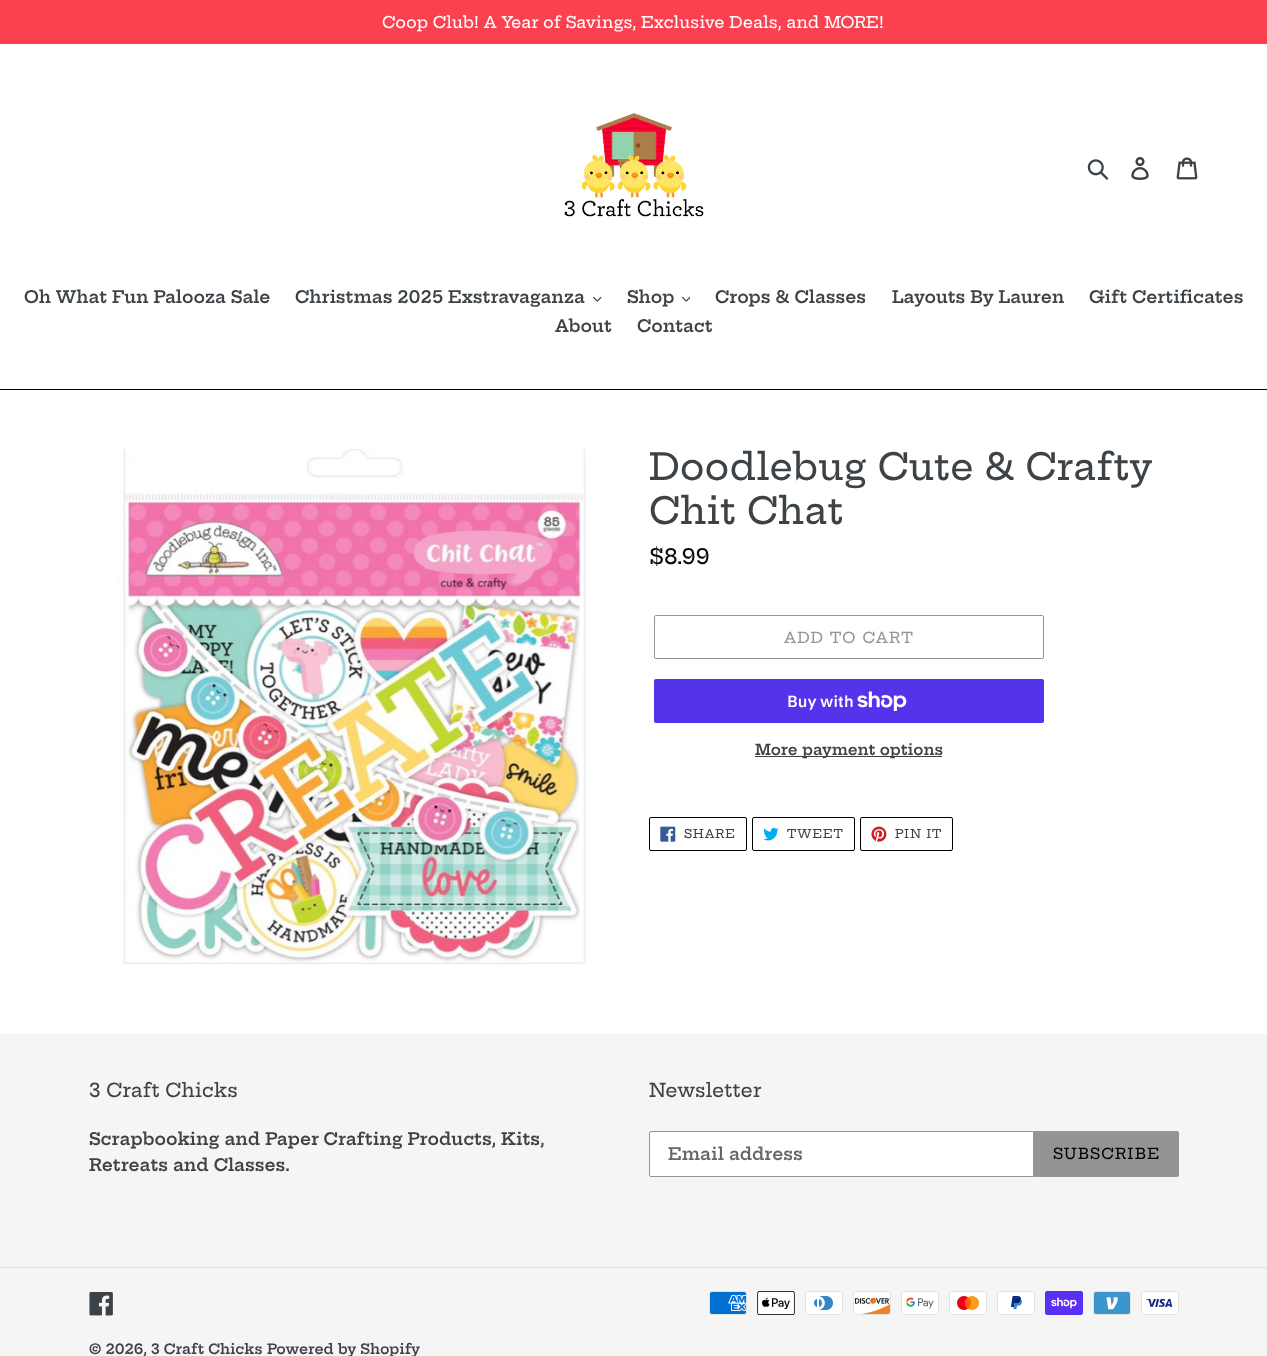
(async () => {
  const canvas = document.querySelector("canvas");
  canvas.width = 1267;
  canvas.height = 1356;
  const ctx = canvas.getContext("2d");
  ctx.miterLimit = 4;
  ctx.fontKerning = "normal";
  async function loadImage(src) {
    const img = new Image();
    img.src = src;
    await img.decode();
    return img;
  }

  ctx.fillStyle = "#ffffff";
  ctx.fillRect(0, 0, 1267, 1356);
  ctx.fillStyle = "#fb414f";
  ctx.fillRect(0, 0, 1267, 44);
  ctx.drawImage(await loadImage("img/1.png"), 564, 112, 140, 106);
  ctx.drawImage(await loadImage("img/2.png"), 1087, 159, 22, 21);
  ctx.drawImage(await loadImage("img/3.png"), 1131, 157, 18, 23);
  ctx.drawImage(await loadImage("img/4.png"), 1176, 157, 22, 23);
  ctx.fillStyle = "#000000";
  ctx.fillRect(0, 389, 1267, 1);
  ctx.drawImage(await loadImage("img/5.png"), 593, 296, 9, 6);
  ctx.drawImage(await loadImage("img/6.png"), 682, 296, 8, 6);
  ctx.drawImage(await loadImage("img/7.png"), 117, 449, 470, 516);
  ctx.beginPath();
  ctx.roundRect(654.5, 615.5, 389, 43, 1.5);
  ctx.strokeStyle = "#949494";
  ctx.stroke();
  ctx.fillStyle = "#5433eb";
  ctx.beginPath();
  ctx.roundRect(654, 679, 390, 44, 2);
  ctx.fill();
  ctx.drawImage(await loadImage("img/8.png"), 857, 691, 50, 20);
  ctx.fillStyle = "#3d4246";
  ctx.fillRect(755, 756, 187, 1);
  ctx.beginPath();
  ctx.roundRect(649.5, 817.5, 97, 33, 1.5);
  ctx.strokeStyle = "#000000";
  ctx.stroke();
  ctx.drawImage(await loadImage("img/9.png"), 660, 826, 16, 16);
  ctx.beginPath();
  ctx.roundRect(752.5, 817.5, 102, 33, 1.5);
  ctx.stroke();
  ctx.drawImage(await loadImage("img/10.png"), 763, 827, 16, 14);
  ctx.beginPath();
  ctx.roundRect(860.5, 817.5, 92, 33, 1.5);
  ctx.stroke();
  ctx.drawImage(await loadImage("img/11.png"), 871, 826, 16, 16);
  ctx.fillStyle = "#f5f5f5";
  ctx.fillRect(0, 1034, 1267, 322);
  ctx.fillStyle = "#ffffff";
  ctx.beginPath();
  ctx.roundRect(649.5, 1131.5, 384, 45, [1.5, 0, 0, 1.5]);
  ctx.fill();
  ctx.strokeStyle = "#949494";
  ctx.stroke();
  ctx.fillStyle = "#949494";
  ctx.beginPath();
  ctx.roundRect(1034, 1131, 145, 46, [0, 2, 2, 0]);
  ctx.fill();
  ctx.fillStyle = "#dcdcdc";
  ctx.fillRect(0, 1267, 1267, 1);
  ctx.drawImage(await loadImage("img/12.png"), 89, 1292, 24, 24);
  ctx.drawImage(await loadImage("img/13.png"), 709, 1291, 38, 24);
  ctx.drawImage(await loadImage("img/14.png"), 757, 1291, 38, 24);
  ctx.drawImage(await loadImage("img/15.png"), 805, 1291, 38, 24);
  ctx.drawImage(await loadImage("img/16.png"), 853, 1291, 38, 24);
  ctx.drawImage(await loadImage("img/17.png"), 901, 1291, 38, 24);
  ctx.drawImage(await loadImage("img/18.png"), 949, 1291, 38, 24);
  ctx.drawImage(await loadImage("img/19.png"), 997, 1291, 38, 24);
  ctx.drawImage(await loadImage("img/20.png"), 1045, 1291, 38, 24);
  ctx.drawImage(await loadImage("img/21.png"), 1093, 1291, 38, 24);
  ctx.drawImage(await loadImage("img/22.png"), 1141, 1291, 38, 24);
  ctx.font = "500 16px Hepta Slab";
  ctx.fillStyle = "#ffffff";
  ctx.fillText("Coop Club! A Year of Savings, Exclusive Deals, and MORE!", 382, 28);
  ctx.font = "600 17px Hepta Slab";
  ctx.fillStyle = "#3d4246";
  for (const [text, x, y] of [
    ["Oh What Fun Palooza Sale", 24, 303],
    ["Christmas 2025 Exstravaganza", 295, 303],
    ["Shop", 627, 303],
    ["Crops & Classes", 715, 303],
    ["Layouts By Lauren", 892, 303],
    ["Gift Certificates", 1089, 303],
    ["About", 555, 332],
    ["Contact", 637, 332],
  ]) {
    ctx.fillText(text, x, y);
  }
  ctx.font = "500 37px Hepta Slab";
  ctx.fillText("Doodlebug Cute & Crafty", 649, 480);
  ctx.fillText("Chit Chat", 649, 524);
  ctx.font = "500 21px Hepta Slab";
  ctx.fillStyle = "#080808";
  ctx.fillText("$8.99", 649, 564);
  ctx.letterSpacing = "1.25px";
  ctx.font = "500 15px Hepta Slab";
  ctx.fillStyle = "#949494";
  ctx.fillText("ADD TO CART", 784, 643);
  ctx.letterSpacing = "0px";
  ctx.font = "600 16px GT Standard";
  ctx.fillStyle = "#ffffff";
  ctx.fillText("Buy with", 787, 707);
  ctx.font = "600 15px Hepta Slab";
  ctx.fillStyle = "#3d4246";
  ctx.fillText("More payment options", 755, 755);
  ctx.letterSpacing = "1px";
  ctx.font = "500 12px Hepta Slab";
  for (const [text, x, y] of [
    ["SHARE", 684, 838],
    ["TWEET", 787, 838],
    ["PIN IT", 895, 838],
  ]) {
    ctx.fillText(text, x, y);
  }
  ctx.letterSpacing = "0px";
  ctx.font = "500 19px Hepta Slab";
  ctx.fillText("3 Craft Chicks", 89, 1097);
  ctx.font = "600 17px Hepta Slab";
  ctx.fillText("Scrapbooking and Paper Crafting Products, Kits,", 89, 1145);
  ctx.fillText("Retreats and Classes.", 89, 1171);
  ctx.font = "500 19px Hepta Slab";
  ctx.fillText("Newsletter", 649, 1097);
  ctx.font = "600 17px Hepta Slab";
  ctx.fillStyle = "#666666";
  ctx.fillText("Email address", 668, 1160);
  ctx.letterSpacing = "1.25px";
  ctx.font = "500 15px Hepta Slab";
  ctx.fillStyle = "#000000";
  ctx.fillText("SUBSCRIBE", 1053, 1159);
  ctx.letterSpacing = "0px";
  ctx.font = "600 14px Hepta Slab";
  ctx.fillStyle = "#3d4246";
  ctx.fillText("© 2026, 3 Craft Chicks", 89, 1354);
  ctx.fillText("Powered by Shopify", 267, 1354);
})();
